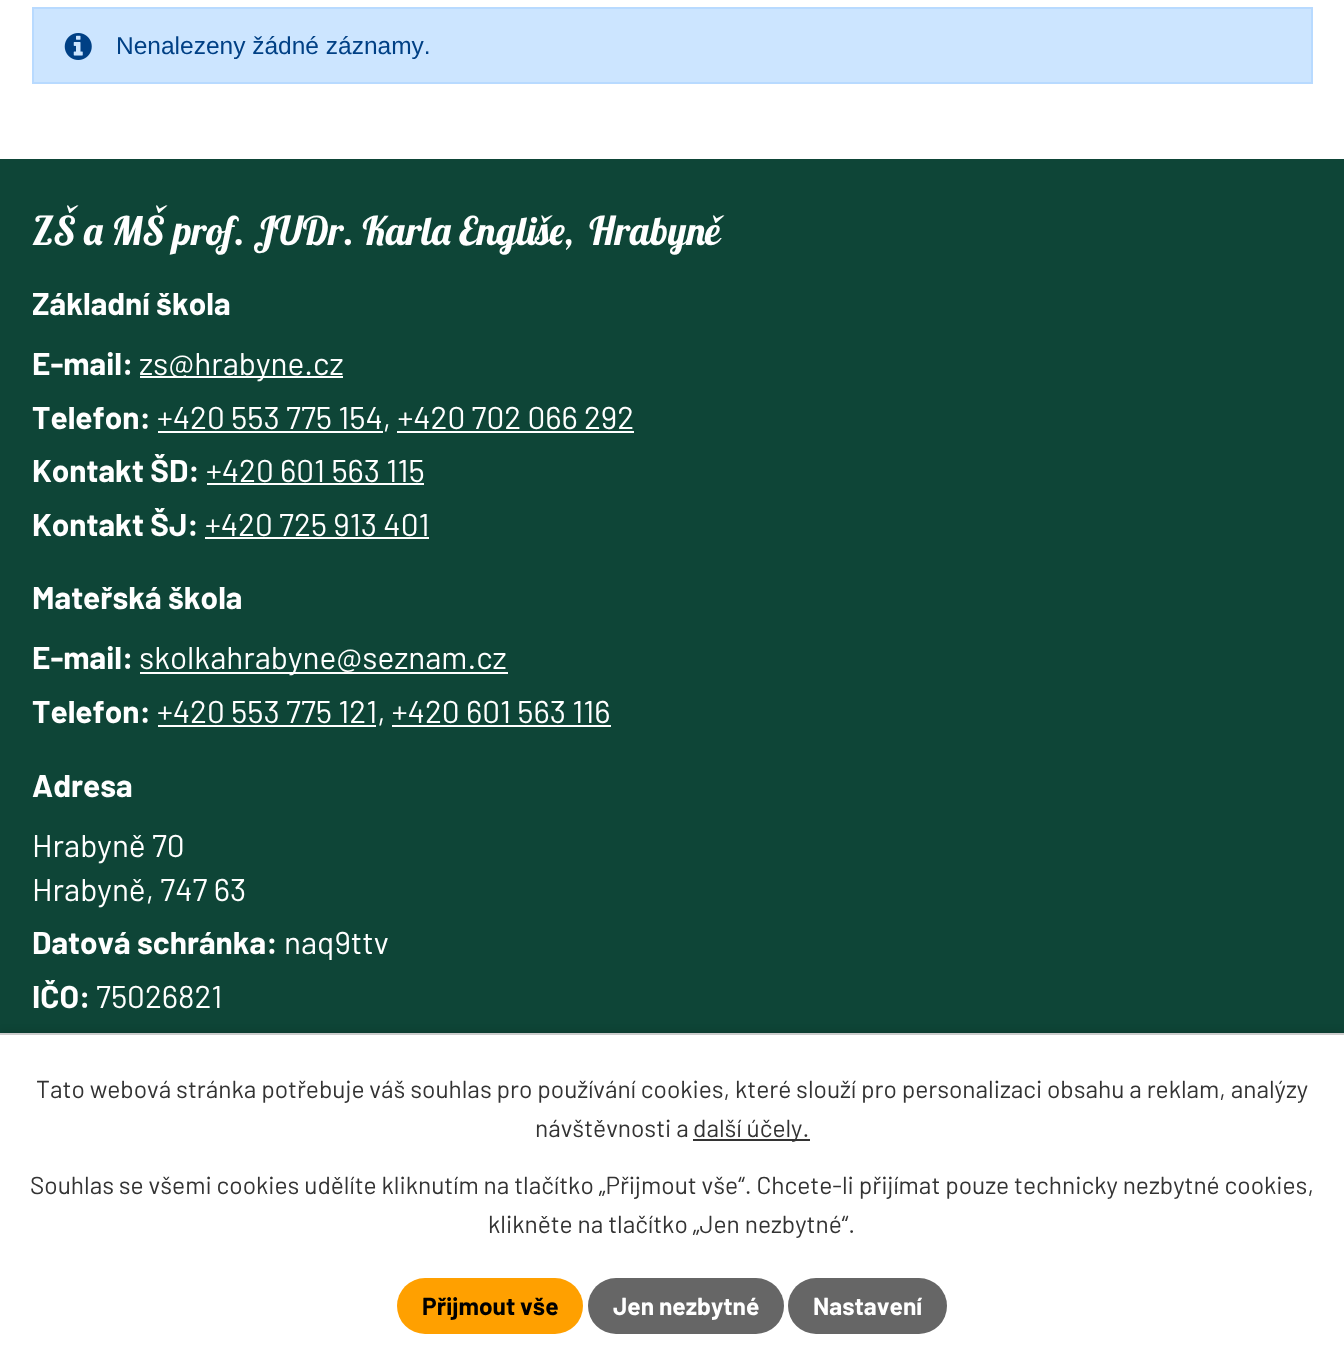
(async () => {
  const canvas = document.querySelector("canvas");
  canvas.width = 1344;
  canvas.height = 1366;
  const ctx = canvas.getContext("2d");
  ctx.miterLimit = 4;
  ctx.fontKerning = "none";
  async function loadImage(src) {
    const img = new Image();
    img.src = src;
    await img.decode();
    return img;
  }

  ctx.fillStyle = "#ffffff";
  ctx.fillRect(0, 0, 1344, 1366);
  ctx.fillStyle = "#cce5ff";
  ctx.beginPath();
  ctx.rect(33, 8, 1279, 75);
  ctx.fill();
  ctx.strokeStyle = "#b8daff";
  ctx.lineWidth = 2;
  ctx.stroke();
  ctx.drawImage(await loadImage("img/1.png"), 64, 33, 28, 27);
  for (const [x, y, w, h, color] of [
    [0, 159, 1344, 874, "#0e4537"],
    [140, 376, 203, 2, "#ffffff"],
    [158, 431, 225, 2, "#ffffff"],
    [397, 431, 237, 2, "#ffffff"],
    [207, 483, 217, 2, "#ffffff"],
    [205, 537, 224, 2, "#ffffff"],
    [140, 672, 368, 2, "#ffffff"],
    [158, 725, 218, 2, "#ffffff"],
    [392, 725, 219, 2, "#ffffff"],
  ]) {
    ctx.fillStyle = color;
    ctx.fillRect(x, y, w, h);
  }
  ctx.fillStyle = "rgba(0, 0, 0, 0.2)";
  ctx.filter = "blur(4.5px)";
  ctx.beginPath();
  ctx.rect(0, 1033, 1344, 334);
  ctx.fill();
  ctx.filter = "none";
  for (const [x, y, w, h, color] of [
    [0, 1035, 1344, 331, "#ffffff"],
    [0, 1033, 1344, 2, "#cccccc"],
    [693, 1139, 117, 2, "#333333"],
  ]) {
    ctx.fillStyle = color;
    ctx.fillRect(x, y, w, h);
  }
  ctx.fillStyle = "#ffa000";
  ctx.beginPath();
  ctx.roundRect(397, 1278, 186, 56, 28);
  ctx.fill();
  ctx.fillStyle = "#666666";
  ctx.beginPath();
  ctx.roundRect(588, 1278, 196, 56, 28);
  ctx.fill();
  ctx.beginPath();
  ctx.roundRect(788, 1278, 159, 56, 28);
  ctx.fill();
  ctx.font = "24.5px Liberation Sans";
  ctx.fillStyle = "#004085";
  ctx.fillText("Nenalezeny žádné záznamy.", 116, 54);
  ctx.font = "39.4px Lobster";
  ctx.fillStyle = "#ffffff";
  ctx.fillText("ZŠ a MŠ prof. JUDr. Karla Engliše,", 32, 245);
  ctx.fillText("Hrabyně", 589, 245);
  ctx.font = "bold 31.5px Barlow";
  ctx.fillText("Základní škola", 32, 315);
  ctx.fillText("E-mail:", 32, 375);
  ctx.font = "31.5px Barlow";
  ctx.fillText("zs@hrabyne.cz", 139, 375);
  ctx.font = "bold 31.5px Barlow";
  ctx.fillText("Telefon:", 32, 429);
  ctx.font = "31.5px Barlow";
  ctx.fillText("+420 553 775 154, +420 702 066 292", 157, 429);
  ctx.font = "bold 31.5px Barlow";
  ctx.fillText("Kontakt ŠD:", 32, 482);
  ctx.font = "31.5px Barlow";
  ctx.fillText("+420 601 563 115", 206, 482);
  ctx.font = "bold 31.5px Barlow";
  ctx.fillText("Kontakt ŠJ:", 32, 536);
  ctx.font = "31.5px Barlow";
  ctx.fillText("+420 725 913 401", 205, 536);
  ctx.font = "bold 31.5px Barlow";
  ctx.fillText("Mateřská škola", 32, 609);
  ctx.fillText("E-mail:", 32, 669);
  ctx.font = "31.5px Barlow";
  ctx.fillText("skolkahrabyne@seznam.cz", 139, 669);
  ctx.font = "bold 31.5px Barlow";
  ctx.fillText("Telefon:", 32, 723);
  ctx.font = "31.5px Barlow";
  ctx.fillText("+420 553 775 121, +420 601 563 116", 157, 723);
  ctx.font = "bold 31.5px Barlow";
  ctx.fillText("Adresa", 32, 797);
  ctx.font = "31.5px Barlow";
  ctx.fillText("Hrabyně 70", 32, 857);
  ctx.fillText("Hrabyně, 747 63", 32, 901);
  ctx.font = "bold 31.5px Barlow";
  ctx.fillText("Datová schránka:", 32, 954);
  ctx.font = "31.5px Barlow";
  ctx.fillText("naq9ttv", 284, 954);
  ctx.font = "bold 31.5px Barlow";
  ctx.fillText("IČO:", 32, 1008);
  ctx.font = "31.5px Barlow";
  ctx.fillText("75026821", 96, 1008);
  ctx.font = "24.5px Barlow";
  ctx.fillStyle = "#333333";
  for (const [text, x, y] of [
    ["Tato webová stránka potřebuje váš souhlas pro používání cookies, které slouží pro personalizaci", 36, 1098],
    ["obsahu a reklam, analýzy", 1047, 1098],
    ["návštěvnosti a", 535, 1137],
    ["další účely.", 693, 1137],
    ["Souhlas se všemi cookies udělíte kliknutím na tlačítko „Přijmout vše“. Chcete-li přijímat pouze technicky nezbytné cookies,", 30, 1194],
    ["klikněte na tlačítko „Jen nezbytné“.", 488, 1233],
  ]) {
    ctx.fillText(text, x, y);
  }
  ctx.font = "bold 24.5px Barlow";
  ctx.fillStyle = "#000000";
  ctx.fillText("Přijmout vše", 422, 1315);
  ctx.fillStyle = "#ffffff";
  ctx.fillText("Jen nezbytné", 613, 1315);
  ctx.fillText("Nastavení", 813, 1315);
})();
